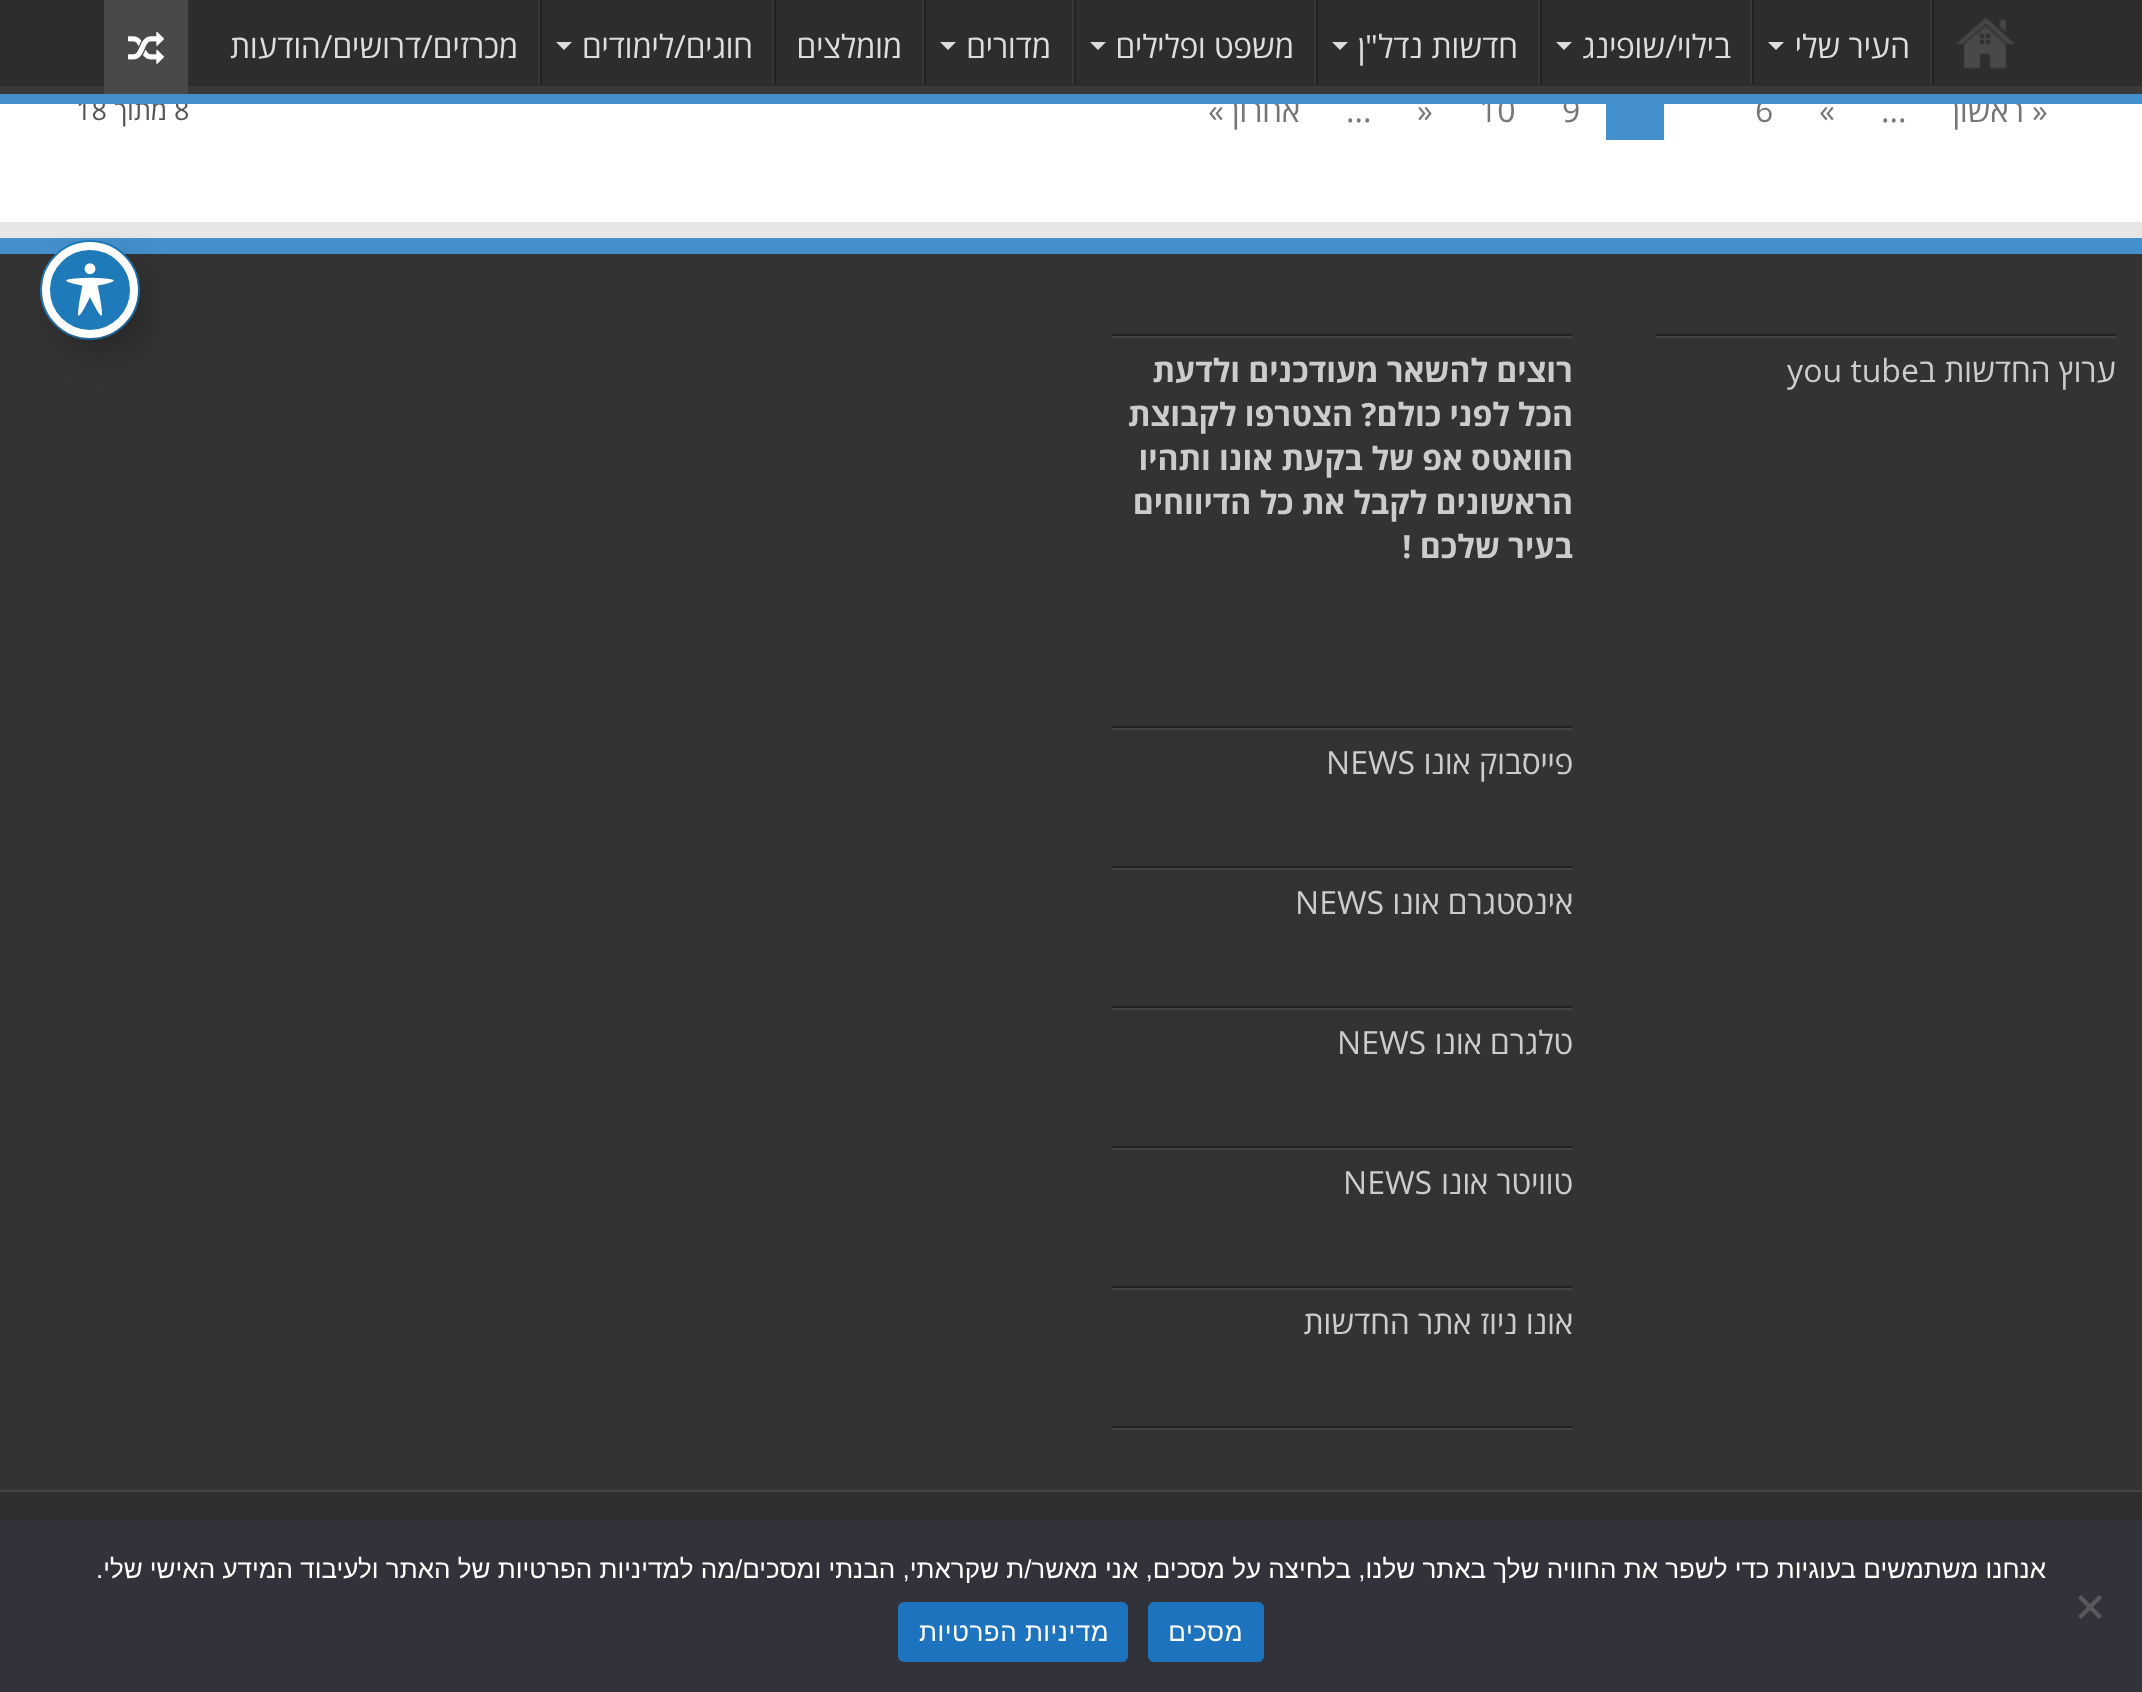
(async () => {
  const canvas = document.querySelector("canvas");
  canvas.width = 2142;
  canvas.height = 1692;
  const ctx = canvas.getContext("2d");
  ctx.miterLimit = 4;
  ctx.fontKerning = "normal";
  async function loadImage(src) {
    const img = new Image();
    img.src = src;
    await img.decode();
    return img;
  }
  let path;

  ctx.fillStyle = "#ffffff";
  ctx.fillRect(0, 0, 2142, 1692);
  ctx.fillStyle = "#2d2d2d";
  ctx.fillRect(0, 0, 2142, 86);
  ctx.save();
  ctx.beginPath();
  ctx.rect(0, 0, 2142, 94);
  ctx.clip();
  ctx.fillStyle = "#393939";
  path = new Path2D("M-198-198H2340V292H-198ZM-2-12H2140C2141-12 2142-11 2142-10V84C2142 85 2141 86 2140 86H-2C-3 86-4 85-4 84V-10C-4-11-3-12-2-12Z");
  ctx.fill(path, "evenodd");
  ctx.restore();
  ctx.drawImage(await loadImage("img/1.png"), 1956, 17, 59, 52);
  ctx.fillStyle = "#222222";
  ctx.fillRect(1932, 0, 2, 84);
  ctx.fillStyle = "#383838";
  ctx.fillRect(1930, 0, 2, 84);
  ctx.fillStyle = "#dddddd";
  path = new Path2D("M1768 42H1784L1776 50Z");
  ctx.fill(path);
  ctx.fillStyle = "#222222";
  ctx.fillRect(1752, 0, 2, 84);
  ctx.fillStyle = "#383838";
  ctx.fillRect(1750, 0, 2, 84);
  ctx.fillStyle = "#dddddd";
  path = new Path2D("M1556 42H1572L1564 50Z");
  ctx.fill(path);
  ctx.fillStyle = "#222222";
  ctx.fillRect(1540, 0, 2, 84);
  ctx.fillStyle = "#383838";
  ctx.fillRect(1538, 0, 2, 84);
  ctx.fillStyle = "#dddddd";
  path = new Path2D("M1332 42H1348L1340 50Z");
  ctx.fill(path);
  ctx.fillStyle = "#222222";
  ctx.fillRect(1316, 0, 2, 84);
  ctx.fillStyle = "#383838";
  ctx.fillRect(1314, 0, 2, 84);
  ctx.fillStyle = "#dddddd";
  path = new Path2D("M1090 42H1106L1098 50Z");
  ctx.fill(path);
  ctx.fillStyle = "#222222";
  ctx.fillRect(1074, 0, 2, 84);
  ctx.fillStyle = "#383838";
  ctx.fillRect(1072, 0, 2, 84);
  ctx.fillStyle = "#dddddd";
  path = new Path2D("M940 42H956L948 50Z");
  ctx.fill(path);
  for (const [x, y, w, h, color] of [
    [924, 0, 2, 84, "#222222"],
    [922, 0, 2, 84, "#383838"],
    [774, 0, 2, 84, "#222222"],
    [772, 0, 2, 84, "#383838"],
  ]) {
    ctx.fillStyle = color;
    ctx.fillRect(x, y, w, h);
  }
  ctx.fillStyle = "#dddddd";
  path = new Path2D("M556 42H572L564 50Z");
  ctx.fill(path);
  for (const [x, y, w, h, color] of [
    [540, 0, 2, 84, "#222222"],
    [538, 0, 2, 84, "#383838"],
    [104, 0, 84, 94, "#494949"],
  ]) {
    ctx.fillStyle = color;
    ctx.fillRect(x, y, w, h);
  }
  ctx.drawImage(await loadImage("img/2.png"), 128, 31, 36, 33);
  for (const [x, y, w, h, color] of [
    [1606, 104, 58, 36, "#4490cd"],
    [0, 222, 2142, 16, "#e6e6e6"],
    [0, 254, 2142, 1236, "#333333"],
    [0, 238, 2142, 16, "#4490cd"],
    [1656, 334, 460, 2, "#222222"],
    [1656, 336, 460, 2, "#444444"],
    [1112, 334, 460, 2, "#222222"],
    [1112, 336, 460, 2, "#444444"],
    [1112, 726, 460, 2, "#222222"],
    [1112, 728, 460, 2, "#444444"],
    [1112, 866, 460, 2, "#222222"],
    [1112, 868, 460, 2, "#444444"],
    [1112, 1006, 460, 2, "#222222"],
    [1112, 1008, 460, 2, "#444444"],
    [1112, 1146, 460, 2, "#222222"],
    [1112, 1148, 460, 2, "#444444"],
    [1112, 1286, 460, 2, "#222222"],
    [1112, 1288, 460, 2, "#444444"],
    [1112, 1426, 460, 2, "#222222"],
    [1112, 1428, 460, 2, "#444444"],
    [0, 1492, 2142, 28, "#2e2e2e"],
    [0, 1490, 2142, 2, "#444444"],
  ]) {
    ctx.fillStyle = color;
    ctx.fillRect(x, y, w, h);
  }
  ctx.beginPath();
  ctx.arc(90, 290, 49, 0, Math.PI * 2);
  ctx.strokeStyle = "#1e7ab9";
  ctx.lineWidth = 2;
  ctx.stroke();
  ctx.fillStyle = "rgba(0, 0, 0, 0.2)";
  ctx.filter = "blur(16px)";
  ctx.beginPath();
  ctx.roundRect(54, 258, 96, 96, 48);
  ctx.fill();
  ctx.filter = "none";
  ctx.fillStyle = "#1e7ab9";
  ctx.beginPath();
  ctx.arc(90, 290, 44, 0, Math.PI * 2);
  ctx.fill();
  ctx.strokeStyle = "#ffffff";
  ctx.lineWidth = 8;
  ctx.stroke();
  ctx.drawImage(await loadImage("img/3.png"), 66, 263, 48, 53);
  ctx.fillStyle = "#32323a";
  ctx.fillRect(0, 1520, 2142, 172);
  ctx.fillStyle = "#59595d";
  path = new Path2D("M2099 1595L2102 1598L2081 1619L2078 1616Z");
  ctx.fill(path);
  path = new Path2D("M2078 1598L2081 1595L2102 1616L2099 1619Z");
  ctx.fill(path);
  ctx.fillStyle = "#1e73be";
  ctx.beginPath();
  ctx.roundRect(1148, 1602, 116, 60, 6);
  ctx.fill();
  ctx.beginPath();
  ctx.roundRect(898, 1602, 230, 60, 6);
  ctx.fill();
  ctx.direction = "rtl";
  ctx.font = "32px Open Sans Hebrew";
  ctx.fillStyle = "#dddddd";
  for (const [text, x, y] of [
    ["העיר שלי", 1910, 58],
    ["בילוי/שופינג", 1731, 58],
    ["חדשות נדל\"ן", 1518, 58],
    ["משפט ופלילים", 1294, 58],
    ["מדורים", 1051, 58],
    ["מומלצים", 902, 58],
    ["חוגים/לימודים", 753, 58],
    ["מכרזים/דרושים/הודעות", 518, 58],
  ]) {
    ctx.fillText(text, x, y);
  }
  ctx.fillStyle = "#777777";
  ctx.fillText("« ראשון", 2048, 122);
  ctx.direction = "ltr";
  for (const [text, x, y] of [
    ["...", 1881, 122],
    ["«", 1819, 122],
    ["6", 1755, 122],
    ["9", 1562, 122],
    ["10", 1479, 122],
    ["»", 1417, 122],
    ["...", 1346, 122],
  ]) {
    ctx.fillText(text, x, y);
  }
  ctx.direction = "rtl";
  ctx.fillText("אחרון »", 1300, 122);
  ctx.direction = "ltr";
  ctx.font = "27px Open Sans Hebrew";
  ctx.fillStyle = "#555555";
  ctx.fillText("8", 174, 120);
  ctx.direction = "rtl";
  ctx.fillText("מתוך", 167, 120);
  ctx.direction = "ltr";
  ctx.fillText("18", 76, 120);
  ctx.fillStyle = "#4490cd";
  ctx.fillRect(0, 94, 2142, 10);
  ctx.direction = "rtl";
  ctx.font = "32px Open Sans Hebrew";
  ctx.fillStyle = "#cccccc";
  ctx.fillText("ערוץ החדשות ב", 2116, 382);
  ctx.direction = "ltr";
  ctx.fillText("you tube", 1787, 382);
  ctx.direction = "rtl";
  ctx.font = "bold 32px Open Sans Hebrew";
  for (const [text, x, y] of [
    ["רוצים להשאר מעודכנים ולדעת", 1573, 382],
    ["הכל לפני כולם? הצטרפו לקבוצת", 1573, 426],
    ["הוואטס אפ של בקעת אונו ותהיו", 1573, 470],
    ["הראשונים לקבל את כל הדיווחים", 1573, 514],
    ["בעיר שלכם !", 1573, 558],
  ]) {
    ctx.fillText(text, x, y);
  }
  ctx.font = "32px Open Sans Hebrew";
  ctx.fillText("פייסבוק אונו", 1573, 774);
  ctx.direction = "ltr";
  ctx.fillText("NEWS", 1326, 774);
  ctx.direction = "rtl";
  ctx.fillText("אינסטגרם אונו", 1573, 914);
  ctx.direction = "ltr";
  ctx.fillText("NEWS", 1295, 914);
  ctx.direction = "rtl";
  ctx.fillText("טלגרם אונו", 1573, 1054);
  ctx.direction = "ltr";
  ctx.fillText("NEWS", 1337, 1054);
  ctx.direction = "rtl";
  ctx.fillText("טוויטר אונו", 1573, 1194);
  ctx.direction = "ltr";
  ctx.fillText("NEWS", 1343, 1194);
  ctx.direction = "rtl";
  ctx.fillText("אונו ניוז אתר החדשות", 1573, 1334);
  ctx.font = "26px Liberation Sans";
  ctx.fillStyle = "#ffffff";
  ctx.fillText("אנחנו משתמשים בעוגיות כדי לשפר את החוויה שלך באתר שלנו, בלחיצה על מסכים, אני מאשר/ת שקראתי, הבנתי ומסכים/מה למדיניות הפרטיות של האתר ולעיבוד המידע האישי שלי.", 2046, 1578);
  ctx.letterSpacing = "0.5px";
  ctx.fillText("מסכים", 1243, 1641);
  ctx.fillText("מדיניות הפרטיות", 1109, 1641);
})();
